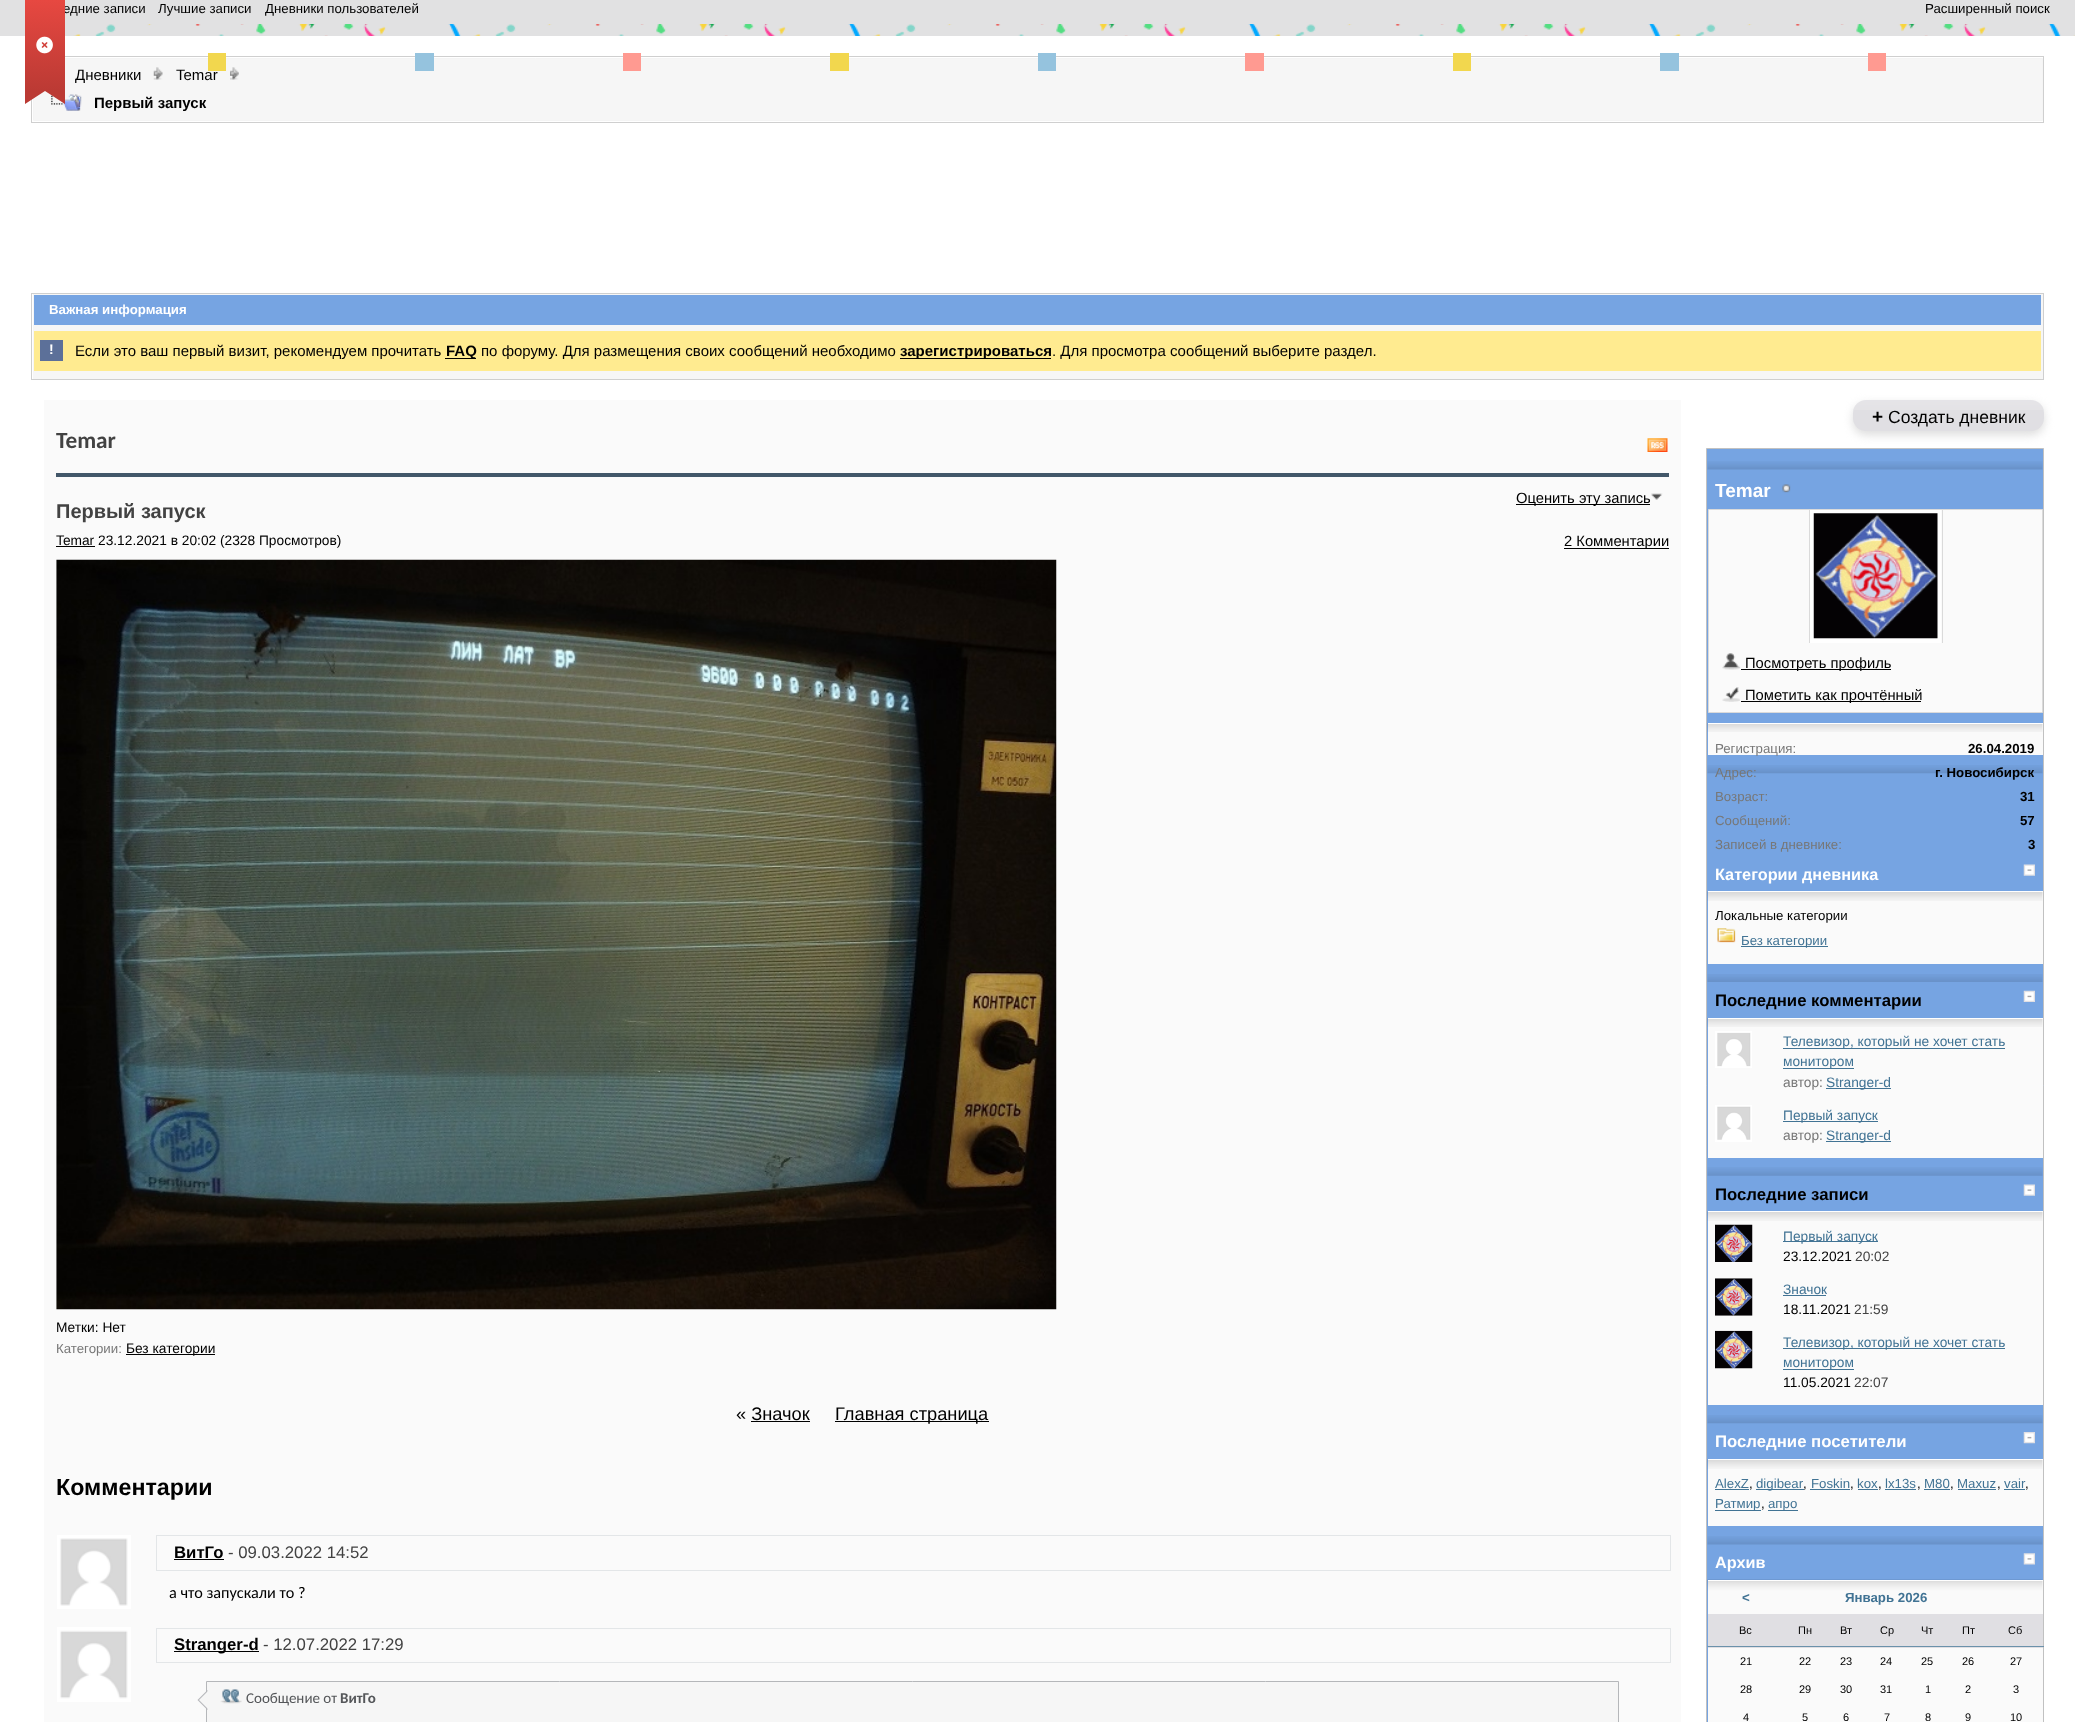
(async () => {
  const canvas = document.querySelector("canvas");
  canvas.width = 2075;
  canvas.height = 1722;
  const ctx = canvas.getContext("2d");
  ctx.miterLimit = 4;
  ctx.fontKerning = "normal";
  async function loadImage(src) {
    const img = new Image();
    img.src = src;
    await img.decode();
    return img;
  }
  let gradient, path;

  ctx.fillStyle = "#e1e1e2";
  ctx.fillRect(0, 0, 2075, 1722);
  ctx.drawImage(await loadImage("img/1.png"), 73, 24, 2002, 12);
  ctx.fillStyle = "#ffffff";
  ctx.fillRect(0, 36, 2075, 1686);
  ctx.strokeStyle = "#cfcfcf";
  ctx.strokeRect(31.5, 56.5, 2012, 66);
  ctx.fillStyle = "#f6f6f6";
  ctx.beginPath();
  ctx.rect(33.5, 58.5, 2009, 62);
  ctx.fill();
  ctx.strokeStyle = "#f4f4f4";
  ctx.stroke();
  ctx.drawImage(await loadImage("img/5.png"), 51, 94, 31, 17);
  ctx.fillStyle = "#bb3a34";
  path = new Path2D("M65 91V104L45 91ZM25 104V91H45Z");
  ctx.fill(path);
  for (const [x, y, w, h, color] of [
    [415, 53, 19, 18, "#95c3de"],
    [623, 53, 18, 18, "#ff9a91"],
    [830, 53, 19, 18, "#f2d74e"],
    [1038, 53, 18, 18, "#95c3de"],
    [1245, 53, 19, 18, "#ff9a91"],
    [1453, 53, 18, 18, "#f2d74e"],
    [1660, 53, 19, 18, "#95c3de"],
    [1868, 53, 18, 18, "#ff9a91"],
  ]) {
    ctx.fillStyle = color;
    ctx.fillRect(x, y, w, h);
  }
  ctx.drawImage(await loadImage("img/3.png"), 153, 67, 10, 13);
  ctx.drawImage(await loadImage("img/4.png"), 230, 67, 9, 13);
  ctx.strokeStyle = "#cfcfcf";
  ctx.strokeRect(31.5, 293.5, 2012, 86);
  for (const [x, y, w, h, color] of [
    [33, 294, 2010, 85, "#f6f6f6"],
    [34, 295, 2007, 30, "#76a4e2"],
    [34, 331, 2007, 40, "#ffeb90"],
    [40, 340, 23, 21, "#5c7099"],
    [445, 358, 31, 1, "#000000"],
    [900, 358, 151, 1, "#000000"],
    [44, 400, 1637, 1322, "#fafafa"],
    [56, 473, 1613, 4, "#425769"],
  ]) {
    ctx.fillStyle = color;
    ctx.fillRect(x, y, w, h);
  }
  ctx.drawImage(await loadImage("img/6.png"), 1647, 438, 21, 14);
  ctx.fillStyle = "#000000";
  ctx.fillRect(1516, 504, 134, 1);
  ctx.drawImage(await loadImage("img/7.png"), 1651, 493, 12, 7);
  ctx.fillRect(56, 546, 39, 1);
  ctx.fillRect(1564, 548, 105, 1);
  ctx.drawImage(await loadImage("img/8.png"), 56, 559, 1001, 751);
  for (const [x, y, w, h, color] of [
    [126, 1354, 89, 1, "#000000"],
    [835, 1421, 154, 1, "#000000"],
    [751, 1421, 59, 1, "#000000"],
  ]) {
    ctx.fillStyle = color;
    ctx.fillRect(x, y, w, h);
  }
  ctx.drawImage(await loadImage("img/9.png"), 57, 1535, 74, 74);
  ctx.strokeStyle = "#e3e6e8";
  ctx.strokeRect(156.5, 1535.5, 1514, 35);
  ctx.fillRect(174, 1559, 50, 1);
  ctx.drawImage(await loadImage("img/10.png"), 57, 1627, 74, 75);
  ctx.strokeRect(156.5, 1628.5, 1514, 34);
  ctx.fillRect(174, 1651, 85, 1);
  ctx.fillStyle = "#f6f6f6";
  ctx.beginPath();
  ctx.rect(206.5, 1681.5, 1412, 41);
  ctx.fill();
  ctx.strokeStyle = "#b5b7ba";
  ctx.stroke();
  ctx.fillStyle = "#b5b7ba";
  path = new Path2D("M207.5 1690V1710L197.5 1700Z");
  ctx.fill(path);
  ctx.fillStyle = "#f6f6f6";
  path = new Path2D("M209 1690V1710L199 1700Z");
  ctx.fill(path);
  ctx.drawImage(await loadImage("img/11.png"), 220, 1689, 22, 15);
  ctx.fillStyle = "#76a4e2";
  ctx.beginPath();
  ctx.rect(1706.5, 448.5, 337, 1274);
  ctx.fill();
  ctx.strokeStyle = "#c1c1c1";
  ctx.stroke();
  ctx.fillStyle = "#dddddd";
  ctx.filter = "blur(5px)";
  ctx.beginPath();
  ctx.roundRect(1853, 404, 191, 31, 13);
  ctx.fill();
  ctx.filter = "none";
  ctx.fillStyle = "#e0dfe3";
  ctx.beginPath();
  ctx.roundRect(1853, 400, 191, 31, 13);
  ctx.fill();
  ctx.drawImage(await loadImage("img/12.png"), 1854, 400, 189, 10);
  ctx.drawImage(await loadImage("img/13.png"), 1707, 461, 336, 9);
  ctx.drawImage(await loadImage("img/14.png"), 1782, 484, 9, 9);
  ctx.fillStyle = "#fafafa";
  ctx.beginPath();
  ctx.rect(1708.5, 509.5, 334, 203);
  ctx.fill();
  ctx.strokeStyle = "#dadada";
  ctx.stroke();
  ctx.strokeStyle = "#ffffff";
  ctx.lineWidth = 4;
  ctx.strokeRect(1812, 512, 127, 129);
  ctx.drawImage(await loadImage("img/15.png"), 1813, 513, 125, 126);
  ctx.save();
  ctx.beginPath();
  ctx.rect(1709, 510, 332, 133);
  ctx.clip();
  ctx.strokeStyle = "#dadada";
  ctx.lineWidth = 1;
  ctx.strokeRect(1809.5, 509.5, 133, 134);
  ctx.restore();
  ctx.drawImage(await loadImage("img/16.png"), 1722, 653, 19, 17);
  ctx.fillStyle = "#000000";
  ctx.fillRect(1741, 669, 150, 1);
  ctx.drawImage(await loadImage("img/17.png"), 1722, 687, 18, 15);
  ctx.fillRect(1741, 701, 180, 1);
  ctx.fillStyle = "#fafafa";
  ctx.fillRect(1708, 724, 335, 31);
  ctx.drawImage(await loadImage("img/18.png"), 1707, 723, 336, 9);
  ctx.fillStyle = "#ffffff";
  ctx.fillRect(1708, 723, 335, 1);
  ctx.drawImage(await loadImage("img/19.png"), 1707, 765, 336, 9);
  ctx.drawImage(await loadImage("img/20.png"), 2023, 864, 12, 12);
  ctx.fillStyle = "#fafafa";
  ctx.fillRect(1708, 892, 335, 72);
  ctx.drawImage(await loadImage("img/21.png"), 1707, 892, 336, 9);
  ctx.fillStyle = "#ffffff";
  ctx.fillRect(1708, 891, 335, 1);
  ctx.drawImage(await loadImage("img/22.png"), 1717, 928, 19, 15);
  ctx.fillStyle = "#417394";
  ctx.fillRect(1741, 946, 87, 1);
  ctx.drawImage(await loadImage("img/23.png"), 1707, 974, 336, 8);
  ctx.drawImage(await loadImage("img/24.png"), 2023, 990, 12, 12);
  ctx.fillStyle = "#fafafa";
  ctx.fillRect(1708, 1019, 335, 139);
  ctx.drawImage(await loadImage("img/25.png"), 1707, 1018, 336, 9);
  ctx.fillStyle = "#ffffff";
  ctx.fillRect(1708, 1018, 335, 1);
  ctx.drawImage(await loadImage("img/26.png"), 1715, 1031, 37, 37);
  for (const [x, y, w, h, color] of [
    [1783, 1048, 222, 1, "#417394"],
    [1783, 1068, 71, 1, "#417394"],
    [1826, 1088, 65, 1, "#417394"],
  ]) {
    ctx.fillStyle = color;
    ctx.fillRect(x, y, w, h);
  }
  ctx.drawImage(await loadImage("img/27.png"), 1715, 1105, 37, 37);
  ctx.fillRect(1783, 1121, 95, 1);
  ctx.fillRect(1826, 1141, 65, 1);
  ctx.drawImage(await loadImage("img/28.png"), 1707, 1167, 336, 9);
  ctx.drawImage(await loadImage("img/20.png"), 2023, 1184, 12, 12);
  ctx.fillStyle = "#fafafa";
  ctx.fillRect(1708, 1212, 335, 193);
  ctx.drawImage(await loadImage("img/29.png"), 1707, 1212, 336, 9);
  ctx.fillStyle = "#ffffff";
  ctx.fillRect(1708, 1211, 335, 1);
  ctx.drawImage(await loadImage("img/30.png"), 1715, 1224, 38, 38);
  ctx.fillStyle = "#417394";
  ctx.fillRect(1783, 1241, 95, 1);
  ctx.drawImage(await loadImage("img/31.png"), 1715, 1278, 38, 38);
  ctx.fillRect(1783, 1295, 43, 1);
  ctx.drawImage(await loadImage("img/32.png"), 1715, 1330, 38, 39);
  ctx.fillRect(1783, 1348, 222, 1);
  ctx.fillRect(1783, 1369, 71, 1);
  ctx.drawImage(await loadImage("img/19.png"), 1707, 1415, 336, 9);
  ctx.drawImage(await loadImage("img/33.png"), 2023, 1432, 12, 12);
  ctx.fillStyle = "#fafafa";
  ctx.fillRect(1708, 1460, 335, 66);
  ctx.drawImage(await loadImage("img/34.png"), 1707, 1459, 336, 10);
  for (const [x, y, w, h, color] of [
    [1708, 1459, 335, 1, "#ffffff"],
    [1715, 1489, 34, 1, "#417394"],
    [1756, 1489, 48, 1, "#417394"],
    [1810, 1489, 40, 1, "#417394"],
    [1858, 1489, 20, 1, "#417394"],
    [1885, 1489, 31, 1, "#417394"],
    [1924, 1489, 26, 1, "#417394"],
    [1958, 1489, 38, 1, "#417394"],
    [2004, 1489, 21, 1, "#417394"],
    [1715, 1510, 46, 1, "#417394"],
    [1768, 1510, 30, 1, "#417394"],
  ]) {
    ctx.fillStyle = color;
    ctx.fillRect(x, y, w, h);
  }
  ctx.drawImage(await loadImage("img/13.png"), 1707, 1536, 336, 9);
  ctx.drawImage(await loadImage("img/35.png"), 2023, 1553, 12, 12);
  ctx.fillStyle = "#fafafa";
  ctx.fillRect(1708, 1581, 335, 141);
  ctx.drawImage(await loadImage("img/36.png"), 1707, 1579, 336, 68);
  for (const [x, y, w, h, color] of [
    [1708, 1580, 335, 1, "#ffffff"],
    [1708, 1614, 335, 34, "#e0dfe3"],
    [1708, 1646, 336, 1, "#6b91ab"],
  ]) {
    ctx.fillStyle = color;
    ctx.fillRect(x, y, w, h);
  }
  ctx.font = "13.25px Liberation Sans";
  ctx.fillStyle = "#000000";
  ctx.fillText("едние записи", 63, 13);
  gradient = ctx.createLinearGradient(45, 0, 45, 91);
  gradient.addColorStop(0, "#e74841");
  gradient.addColorStop(1, "#bb3a34");
  ctx.fillStyle = gradient;
  ctx.fillRect(25, 0, 40, 91);
  ctx.drawImage(await loadImage("img/2.png"), 36, 36, 17, 18);
  ctx.fillStyle = "#000000";
  for (const [text, x, y] of [
    ["Лучшие записи", 158, 13],
    ["Дневники пользователей", 265, 13],
    ["Расширенный поиск", 1925, 13],
  ]) {
    ctx.fillText(text, x, y);
  }
  ctx.font = "15px Liberation Sans";
  ctx.fillText("Дневники", 75, 80);
  ctx.fillText("Temar", 176, 80);
  ctx.fillStyle = "#f2d74e";
  ctx.fillRect(208, 53, 18, 18);
  ctx.font = "bold 15px Liberation Sans";
  ctx.fillStyle = "#000000";
  ctx.fillText("Первый запуск", 94, 108);
  ctx.font = "bold 13.25px Liberation Sans";
  ctx.fillStyle = "#ffffff";
  ctx.fillText("Важная информация", 49, 314);
  ctx.font = "bold 14px Liberation Sans";
  ctx.fillText("!", 49, 354);
  ctx.font = "15px Liberation Sans";
  ctx.fillStyle = "#000000";
  ctx.fillText("Если это ваш первый визит, рекомендуем прочитать", 75, 356);
  ctx.font = "bold 15px Liberation Sans";
  ctx.fillText("FAQ", 446, 356);
  ctx.font = "15px Liberation Sans";
  ctx.fillText("по форуму. Для размещения своих сообщений необходимо", 481, 356);
  ctx.font = "bold 15px Liberation Sans";
  ctx.fillText("зарегистрироваться", 900, 356);
  ctx.font = "15px Liberation Sans";
  ctx.fillText(". Для просмотра сообщений выберите раздел.", 1052, 356);
  ctx.font = "bold 23.25px Carlito";
  ctx.fillStyle = "#424242";
  ctx.fillText("Temar", 56, 448);
  ctx.font = "14.75px Liberation Sans";
  ctx.fillStyle = "#000000";
  ctx.fillText("Оценить эту запись", 1516, 503);
  ctx.font = "bold 20px Liberation Sans";
  ctx.fillStyle = "#424242";
  ctx.fillText("Первый запуск", 56, 518);
  ctx.font = "13.75px Liberation Sans";
  ctx.fillStyle = "#000000";
  ctx.fillText("Temar", 56, 545);
  ctx.fillText("23.12.2021 в 20:02 (2328 Просмотров)", 98, 545);
  ctx.font = "14.75px Liberation Sans";
  ctx.fillText("2 Комментарии", 1564, 546);
  ctx.font = "13.75px Liberation Sans";
  ctx.fillText("Метки: Нет", 56, 1332);
  ctx.font = "13.25px Liberation Sans";
  ctx.fillStyle = "#777777";
  ctx.fillText("Категории:", 56, 1353);
  ctx.font = "13.75px Liberation Sans";
  ctx.fillStyle = "#000000";
  ctx.fillText("Без категории", 126, 1353);
  ctx.font = "18.25px Liberation Sans";
  ctx.fillText("« Значок", 736, 1420);
  ctx.fillText("Главная страница", 835, 1420);
  ctx.font = "bold 23.25px Liberation Sans";
  ctx.fillText("Комментарии", 56, 1495);
  ctx.font = "bold 16.75px Liberation Sans";
  ctx.fillText("ВитГо", 174, 1558);
  ctx.font = "16.75px Liberation Sans";
  ctx.fillStyle = "#424242";
  ctx.fillText("- 09.03.2022 14:52", 228, 1558);
  ctx.font = "16.25px Carlito";
  ctx.fillStyle = "#000000";
  ctx.fillText("а что запускали то ?", 169, 1598);
  ctx.font = "bold 16.75px Liberation Sans";
  ctx.fillText("Stranger-d", 174, 1650);
  ctx.font = "16.75px Liberation Sans";
  ctx.fillStyle = "#424242";
  ctx.fillText("- 12.07.2022 17:29", 263, 1650);
  ctx.font = "15px Carlito";
  ctx.fillStyle = "#55575a";
  ctx.fillText("Сообщение от", 246, 1703);
  ctx.font = "bold 15px Carlito";
  ctx.fillText("ВитГо", 340, 1703);
  ctx.font = "bold 19px Liberation Sans";
  ctx.fillStyle = "#000000";
  ctx.fillText("+", 1872, 423);
  ctx.font = "17.5px Liberation Sans";
  ctx.fillText("Создать дневник", 1888, 423);
  ctx.font = "bold 19px Liberation Sans";
  ctx.fillStyle = "#ffffff";
  ctx.fillText("Temar", 1715, 497);
  ctx.font = "14.75px Liberation Sans";
  ctx.fillStyle = "#000000";
  ctx.fillText("Посмотреть профиль", 1745, 668);
  ctx.fillText("Пометить как прочтённый", 1745, 700);
  ctx.font = "13.25px Liberation Sans";
  ctx.fillStyle = "#777777";
  ctx.fillText("Регистрация:", 1715, 753);
  ctx.font = "bold 13.25px Liberation Sans";
  ctx.fillStyle = "#000000";
  ctx.fillText("26.04.2019", 1968, 753);
  ctx.font = "13.25px Liberation Sans";
  ctx.fillStyle = "#777777";
  ctx.fillText("Адрес:", 1715, 777);
  ctx.font = "bold 13.25px Liberation Sans";
  ctx.fillStyle = "#000000";
  ctx.fillText("г. Новосибирск", 1935, 777);
  ctx.font = "13.25px Liberation Sans";
  ctx.fillStyle = "#777777";
  ctx.fillText("Возраст:", 1715, 801);
  ctx.font = "bold 13.25px Liberation Sans";
  ctx.fillStyle = "#000000";
  ctx.fillText("31", 2020, 801);
  ctx.font = "13.25px Liberation Sans";
  ctx.fillStyle = "#777777";
  ctx.fillText("Сообщений:", 1715, 825);
  ctx.font = "bold 13.25px Liberation Sans";
  ctx.fillStyle = "#000000";
  ctx.fillText("57", 2020, 825);
  ctx.font = "13.25px Liberation Sans";
  ctx.fillStyle = "#777777";
  ctx.fillText("Записей в дневнике:", 1715, 849);
  ctx.font = "bold 13.25px Liberation Sans";
  ctx.fillStyle = "#000000";
  ctx.fillText("3", 2028, 849);
  ctx.font = "bold 16.25px Liberation Sans";
  ctx.fillStyle = "#ffffff";
  ctx.fillText("Категории дневника", 1715, 880);
  ctx.font = "13.25px Liberation Sans";
  ctx.fillStyle = "#000000";
  ctx.fillText("Локальные категории", 1715, 920);
  ctx.fillStyle = "#417394";
  ctx.fillText("Без категории", 1741, 945);
  ctx.font = "bold 16.75px Liberation Sans";
  ctx.fillStyle = "#000000";
  ctx.fillText("Последние комментарии", 1715, 1006);
  ctx.font = "13.75px Liberation Sans";
  ctx.fillStyle = "#417394";
  ctx.fillText("Телевизор, который не хочет стать", 1783, 1046);
  ctx.fillText("монитором", 1783, 1066);
  ctx.fillStyle = "#777777";
  ctx.fillText("автор:", 1783, 1087);
  ctx.fillStyle = "#417394";
  ctx.fillText("Stranger-d", 1826, 1087);
  ctx.fillText("Первый запуск", 1783, 1120);
  ctx.fillStyle = "#777777";
  ctx.fillText("автор:", 1783, 1140);
  ctx.fillStyle = "#417394";
  ctx.fillText("Stranger-d", 1826, 1140);
  ctx.font = "bold 16.75px Liberation Sans";
  ctx.fillStyle = "#000000";
  ctx.fillText("Последние записи", 1715, 1200);
  ctx.font = "13.75px Liberation Sans";
  ctx.fillStyle = "#417394";
  ctx.fillText("Первый запуск", 1783, 1241);
  ctx.fillStyle = "#000000";
  ctx.fillText("23.12.2021", 1783, 1261);
  ctx.fillStyle = "#424242";
  ctx.fillText("20:02", 1855, 1261);
  ctx.fillStyle = "#417394";
  ctx.fillText("Значок", 1783, 1294);
  ctx.fillStyle = "#000000";
  ctx.fillText("18.11.2021", 1783, 1314);
  ctx.fillStyle = "#424242";
  ctx.fillText("21:59", 1854, 1314);
  ctx.fillStyle = "#417394";
  ctx.fillText("Телевизор, который не хочет стать", 1783, 1347);
  ctx.fillText("монитором", 1783, 1367);
  ctx.fillStyle = "#000000";
  ctx.fillText("11.05.2021", 1783, 1387);
  ctx.fillStyle = "#424242";
  ctx.fillText("22:07", 1854, 1387);
  ctx.font = "bold 16.75px Liberation Sans";
  ctx.fillStyle = "#ffffff";
  ctx.fillText("Последние посетители", 1715, 1447);
  ctx.font = "13.25px Liberation Sans";
  ctx.fillStyle = "#417394";
  ctx.fillText("AlexZ", 1715, 1488);
  ctx.fillStyle = "#000000";
  ctx.fillText(",", 1749, 1488);
  ctx.fillStyle = "#417394";
  ctx.fillText("digibear", 1756, 1488);
  ctx.fillStyle = "#000000";
  ctx.fillText(",", 1803, 1488);
  ctx.fillStyle = "#417394";
  ctx.fillText("Foskin", 1811, 1488);
  ctx.fillStyle = "#000000";
  ctx.fillText(",", 1850, 1488);
  ctx.fillStyle = "#417394";
  ctx.fillText("kox", 1857, 1488);
  ctx.fillStyle = "#000000";
  ctx.fillText(",", 1878, 1488);
  ctx.fillStyle = "#417394";
  ctx.fillText("lx13s", 1885, 1488);
  ctx.fillStyle = "#000000";
  ctx.fillText(",", 1917, 1488);
  ctx.fillStyle = "#417394";
  ctx.fillText("M80", 1924, 1488);
  ctx.fillStyle = "#000000";
  ctx.fillText(",", 1950, 1488);
  ctx.fillStyle = "#417394";
  ctx.fillText("Maxuz", 1957, 1488);
  ctx.fillStyle = "#000000";
  ctx.fillText(",", 1997, 1488);
  ctx.fillStyle = "#417394";
  ctx.fillText("vair", 2004, 1488);
  ctx.fillStyle = "#000000";
  ctx.fillText(",", 2025, 1488);
  ctx.fillStyle = "#417394";
  ctx.fillText("Ратмир", 1715, 1508);
  ctx.fillStyle = "#000000";
  ctx.fillText(",", 1761, 1508);
  ctx.fillStyle = "#417394";
  ctx.fillText("апро", 1768, 1508);
  ctx.font = "bold 16.25px Liberation Sans";
  ctx.fillStyle = "#ffffff";
  ctx.fillText("Архив", 1715, 1568);
  ctx.font = "bold 13.25px Liberation Sans";
  ctx.fillStyle = "#417394";
  ctx.fillText("<", 1742, 1602);
  ctx.fillText("Январь 2026", 1845, 1602);
  ctx.font = "11px Liberation Sans";
  ctx.fillStyle = "#000000";
  for (const [text, x, y] of [
    ["Вс", 1739, 1634],
    ["Пн", 1798, 1634],
    ["Вт", 1840, 1634],
    ["Ср", 1880, 1634],
    ["Чт", 1921, 1634],
    ["Пт", 1962, 1634],
    ["Сб", 2008, 1634],
    ["21", 1740, 1665],
    ["22", 1799, 1665],
    ["23", 1840, 1665],
    ["24", 1880, 1665],
    ["25", 1921, 1665],
    ["26", 1962, 1665],
    ["27", 2010, 1665],
    ["28", 1740, 1693],
    ["29", 1799, 1693],
    ["30", 1840, 1693],
    ["31", 1880, 1693],
    ["1", 1925, 1693],
    ["2", 1965, 1693],
    ["3", 2013, 1693],
    ["4", 1743, 1721],
    ["5", 1802, 1721],
    ["6", 1843, 1721],
    ["7", 1884, 1721],
    ["8", 1925, 1721],
    ["9", 1965, 1721],
    ["10", 2010, 1721],
  ]) {
    ctx.fillText(text, x, y);
  }
})();
